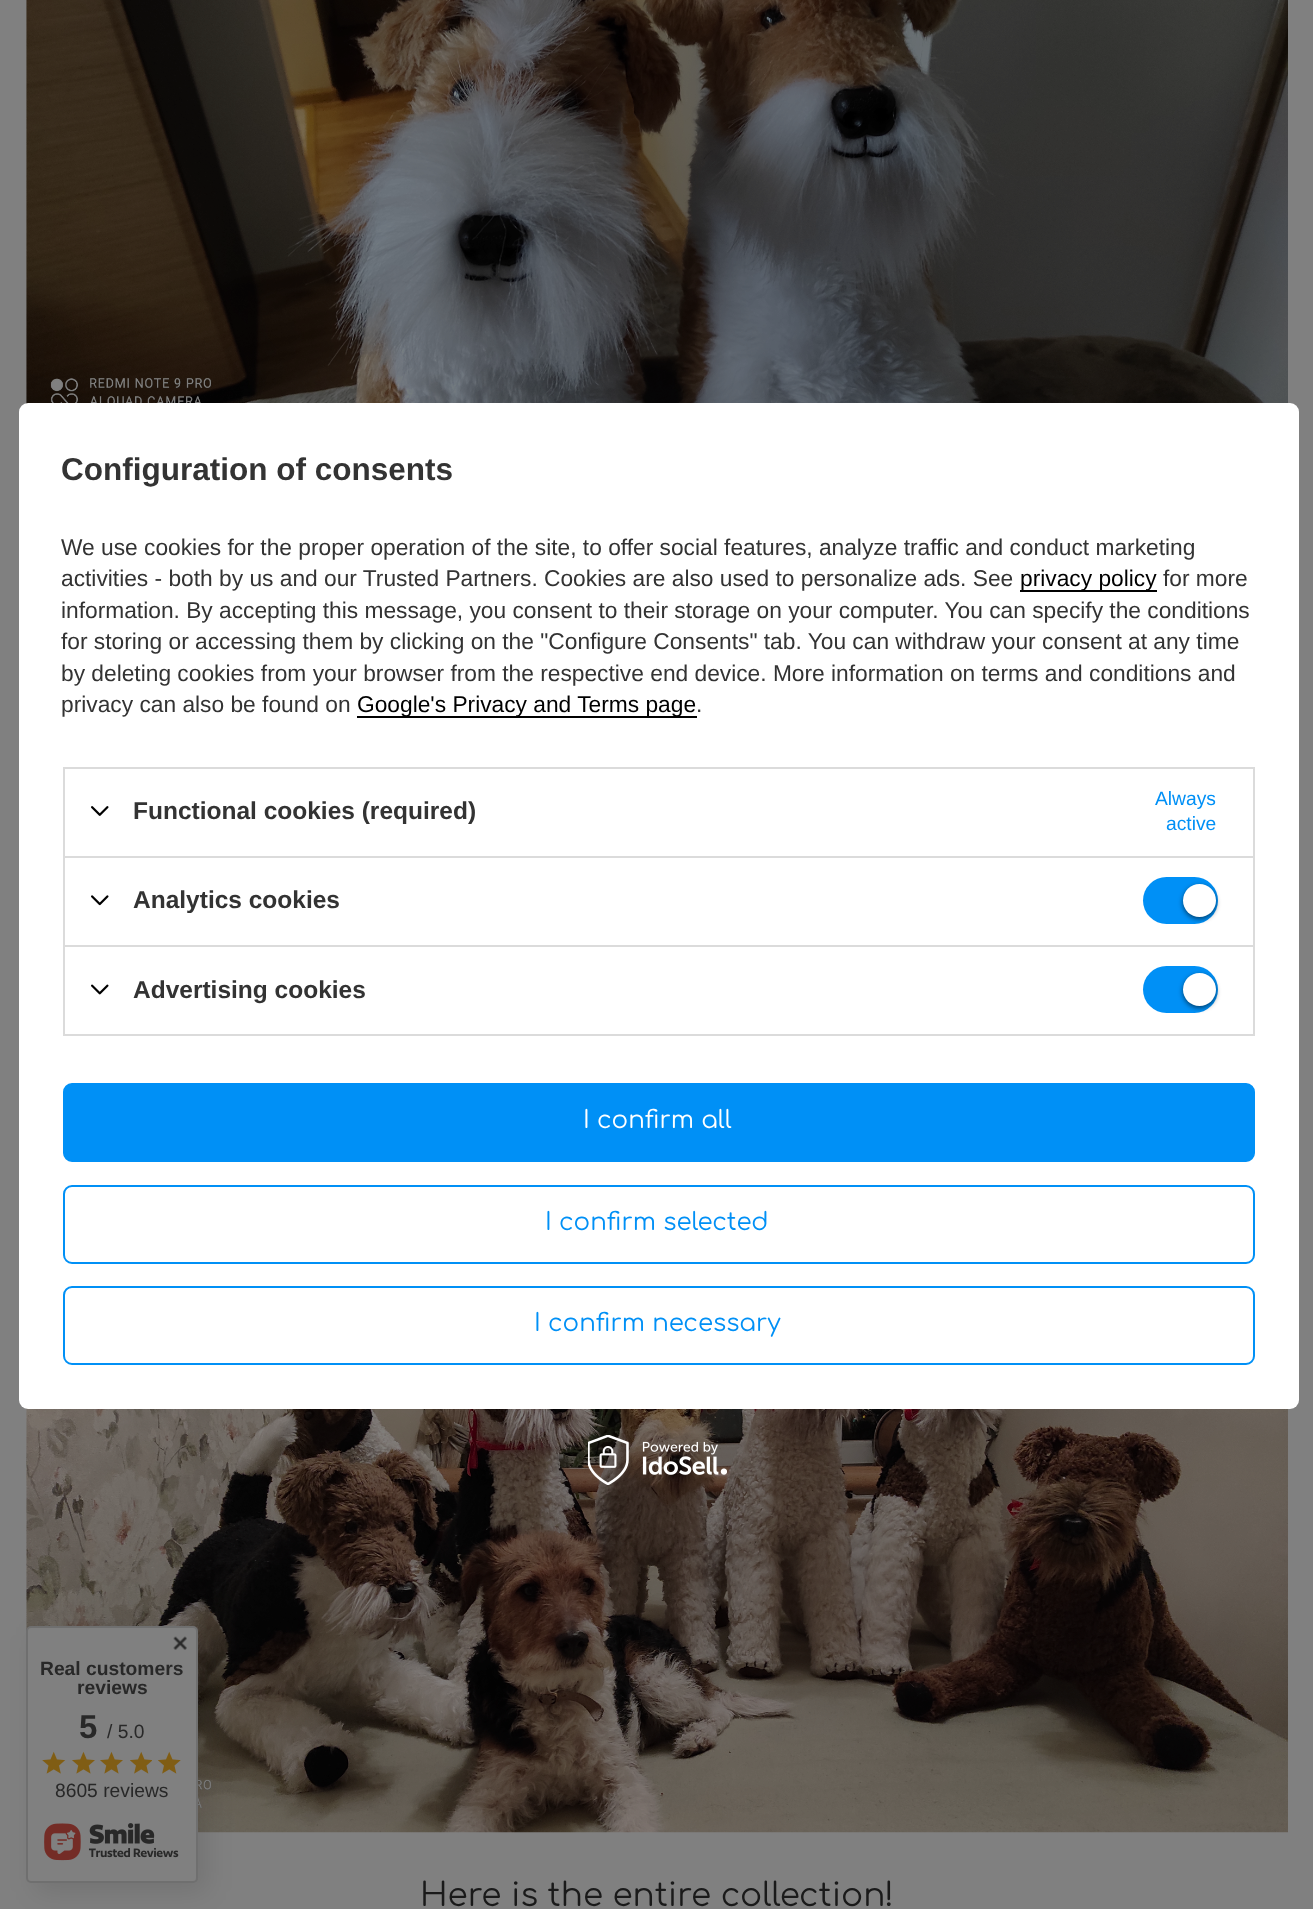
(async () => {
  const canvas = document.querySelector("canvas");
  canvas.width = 1313;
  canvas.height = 1909;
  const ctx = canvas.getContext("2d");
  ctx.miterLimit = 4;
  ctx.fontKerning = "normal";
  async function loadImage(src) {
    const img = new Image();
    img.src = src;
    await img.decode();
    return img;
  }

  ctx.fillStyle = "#808080";
  ctx.fillRect(0, 0, 1313, 1909);
  ctx.drawImage(await loadImage("img/11.png"), 26, 0, 1262, 404);
  ctx.drawImage(await loadImage("img/12.png"), 26, 1408, 1262, 425);
  ctx.fillStyle = "#ffffff";
  ctx.beginPath();
  ctx.roundRect(19, 403, 1280, 1006, 9);
  ctx.fill();
  for (const [x, y, w, h, color] of [
    [1020, 590, 137, 2, "#000000"],
    [357, 716, 340, 2, "#000000"],
    [63, 767, 1192, 2, "#dbdbdb"],
    [1253, 767, 2, 89, "#dbdbdb"],
    [63, 767, 2, 89, "#dbdbdb"],
  ]) {
    ctx.fillStyle = color;
    ctx.fillRect(x, y, w, h);
  }
  ctx.drawImage(await loadImage("img/1.png"), 91, 806, 18, 10);
  for (const [x, y, w, h, color] of [
    [63, 856, 1192, 2, "#dbdbdb"],
    [1253, 856, 2, 89, "#dbdbdb"],
    [63, 856, 2, 89, "#dbdbdb"],
  ]) {
    ctx.fillStyle = color;
    ctx.fillRect(x, y, w, h);
  }
  ctx.drawImage(await loadImage("img/2.png"), 91, 895, 18, 11);
  ctx.fillStyle = "#0090f6";
  ctx.beginPath();
  ctx.roundRect(1143, 877, 75, 47, 23.5);
  ctx.fill();
  ctx.fillStyle = "rgba(0, 0, 0, 0.56)";
  ctx.filter = "blur(2.5px)";
  ctx.beginPath();
  ctx.roundRect(1183, 886, 33, 33, 16.5);
  ctx.fill();
  ctx.filter = "none";
  ctx.fillStyle = "#ffffff";
  ctx.beginPath();
  ctx.arc(1199.5, 900.5, 16.5, 0, Math.PI * 2);
  ctx.fill();
  ctx.strokeStyle = "#dbdbdb";
  ctx.lineWidth = 2;
  ctx.strokeRect(64, 946, 1190, 89);
  ctx.drawImage(await loadImage("img/3.png"), 91, 984, 18, 11);
  ctx.fillStyle = "#0090f6";
  ctx.beginPath();
  ctx.roundRect(1143, 966, 75, 47, 23.5);
  ctx.fill();
  ctx.fillStyle = "rgba(0, 0, 0, 0.56)";
  ctx.filter = "blur(2.5px)";
  ctx.beginPath();
  ctx.roundRect(1183, 975, 33, 33, 16.5);
  ctx.fill();
  ctx.filter = "none";
  ctx.fillStyle = "#ffffff";
  ctx.beginPath();
  ctx.arc(1199.5, 989.5, 16.5, 0, Math.PI * 2);
  ctx.fill();
  ctx.fillStyle = "#0090f6";
  ctx.beginPath();
  ctx.roundRect(64, 1084, 1190, 77, 8);
  ctx.fill();
  ctx.strokeStyle = "#0090f6";
  ctx.stroke();
  ctx.beginPath();
  ctx.roundRect(64, 1186, 1190, 77, 8);
  ctx.stroke();
  ctx.beginPath();
  ctx.roundRect(64, 1287, 1190, 77, 8);
  ctx.stroke();
  ctx.drawImage(await loadImage("img/4.png"), 588, 1435, 139, 50);
  ctx.fillStyle = "rgba(0, 0, 0, 0.1)";
  ctx.filter = "blur(13px)";
  ctx.beginPath();
  ctx.roundRect(35, 1635, 172, 257, 5);
  ctx.fill();
  ctx.filter = "none";
  ctx.fillStyle = "#808080";
  ctx.beginPath();
  ctx.roundRect(27, 1627, 170, 255, 4);
  ctx.fill();
  ctx.strokeStyle = "#6f6f6f";
  ctx.stroke();
  ctx.drawImage(await loadImage("img/5.png"), 173, 1636, 14, 14);
  ctx.drawImage(await loadImage("img/6.png"), 42, 1751, 24, 23);
  ctx.drawImage(await loadImage("img/7.png"), 72, 1751, 23, 23);
  ctx.drawImage(await loadImage("img/7.png"), 100, 1751, 23, 23);
  ctx.drawImage(await loadImage("img/8.png"), 130, 1751, 22, 23);
  ctx.drawImage(await loadImage("img/9.png"), 158, 1751, 23, 23);
  ctx.drawImage(await loadImage("img/10.png"), 44, 1823, 135, 38);
  ctx.font = "bold 31.5px Liberation Sans";
  ctx.fillStyle = "#333333";
  ctx.fillText("Configuration of consents", 61, 480);
  ctx.font = "22.75px Liberation Sans";
  ctx.fillText("We use cookies for the proper operation of the site, to offer social features, analyze traffic and conduct marketing", 61, 555);
  ctx.fillText("activities - both by us and our Trusted Partners. Cookies are also used to personalize ads. See", 61, 586);
  ctx.fillStyle = "#000000";
  ctx.fillText("privacy policy", 1020, 586);
  ctx.fillStyle = "#333333";
  for (const [text, x, y] of [
    ["for more", 1163, 586],
    ["information. By accepting this message, you consent to their storage on your computer. You can specify the conditions", 61, 618],
    ["for storing or accessing them by clicking on the \"Configure Consents\" tab. You can withdraw your consent at any time", 61, 649],
    ["by deleting cookies from your browser from the respective end device. More information on terms and conditions and", 61, 681],
    ["privacy can also be found on", 61, 712],
  ]) {
    ctx.fillText(text, x, y);
  }
  ctx.fillStyle = "#000000";
  ctx.fillText("Google's Privacy and Terms page", 357, 712);
  ctx.fillStyle = "#333333";
  ctx.fillText(".", 696, 712);
  ctx.font = "bold 24.5px Liberation Sans";
  ctx.fillText("Functional cookies (required)", 133, 819);
  ctx.font = "19.25px Liberation Sans";
  ctx.fillStyle = "#0090f6";
  ctx.fillText("Always", 1155, 805);
  ctx.fillText("active", 1166, 830);
  ctx.font = "bold 24.5px Liberation Sans";
  ctx.fillStyle = "#333333";
  ctx.fillText("Analytics cookies", 133, 908);
  ctx.fillText("Advertising cookies", 133, 998);
  ctx.font = "24.5px Comfortaa";
  ctx.fillStyle = "#ffffff";
  ctx.fillText("I confirm all", 583, 1128);
  ctx.fillStyle = "#0090f6";
  ctx.fillText("I confirm selected", 545, 1230);
  ctx.fillText("I confirm necessary", 534, 1331);
  ctx.font = "bold 19.25px Liberation Sans";
  ctx.fillStyle = "#282828";
  ctx.fillText("Real customers", 40, 1675);
  ctx.fillText("reviews", 77, 1694);
  ctx.font = "bold 33px Liberation Sans";
  ctx.fillText("5", 79, 1738);
  ctx.font = "19.25px Liberation Sans";
  ctx.fillText("/ 5.0", 107, 1738);
  ctx.fillText("8605 reviews", 55, 1797);
  ctx.font = "32.7px Comfortaa";
  ctx.fillStyle = "#1a1a1a";
  ctx.fillText("Here is the entire collection!", 420, 1906);
})();
